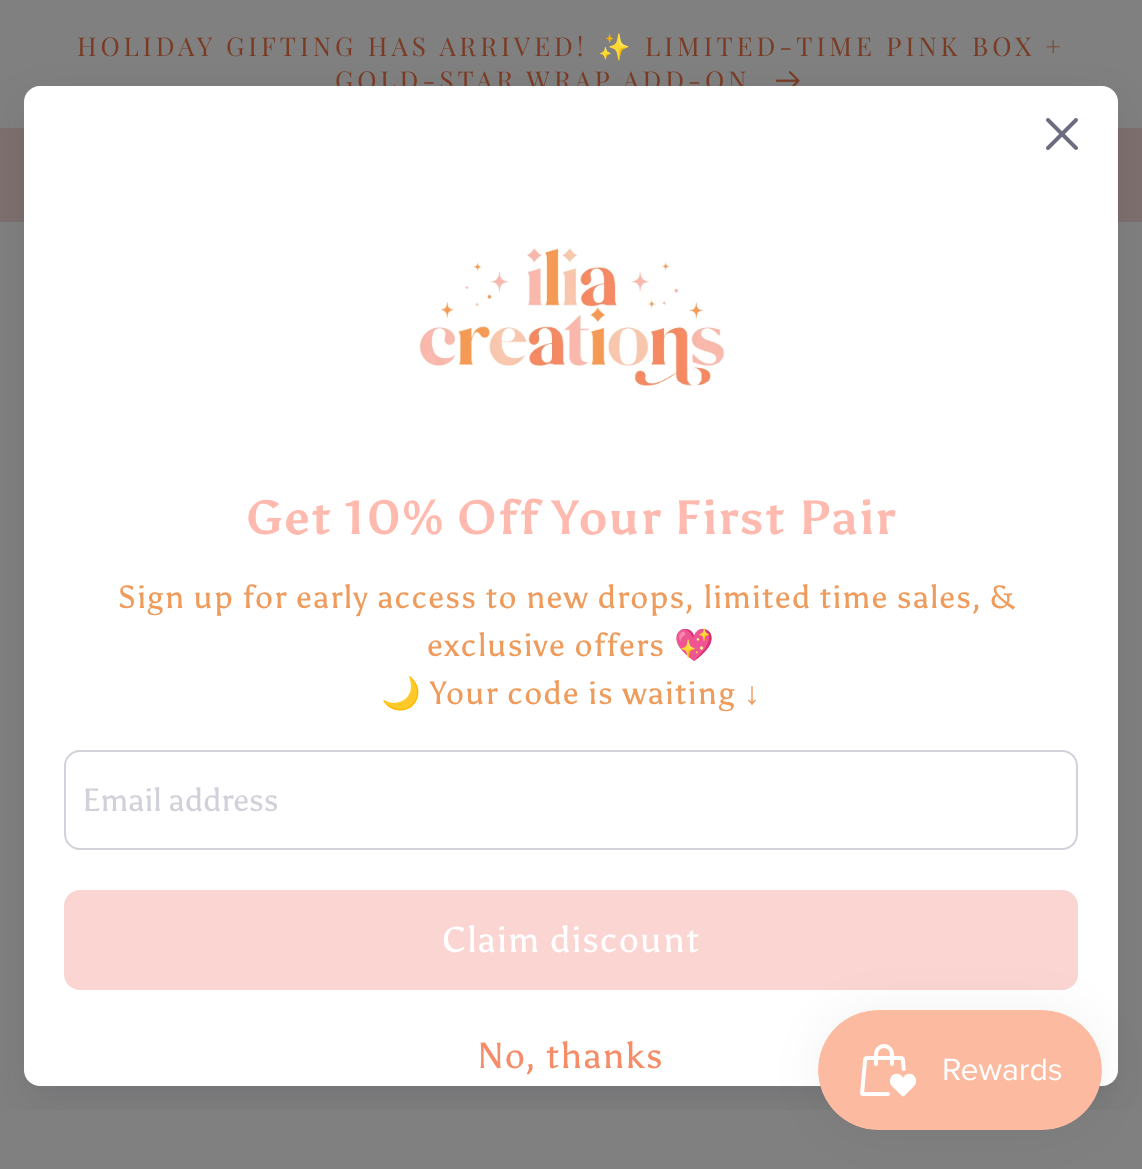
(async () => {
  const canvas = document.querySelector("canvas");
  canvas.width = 1142;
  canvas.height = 1169;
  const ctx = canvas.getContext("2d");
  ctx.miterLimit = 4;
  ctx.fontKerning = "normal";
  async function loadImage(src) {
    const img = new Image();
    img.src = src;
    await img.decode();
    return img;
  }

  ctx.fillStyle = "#808080";
  ctx.fillRect(0, 0, 1142, 1169);
  ctx.drawImage(await loadImage("img/1.png"), 776, 71, 24, 15);
  ctx.fillStyle = "#7d706e";
  ctx.fillRect(0, 128, 1142, 94);
  ctx.save();
  ctx.beginPath();
  ctx.rect(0, 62, 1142, 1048);
  ctx.clip();
  ctx.fillStyle = "rgba(18, 17, 39, 0.1)";
  ctx.filter = "blur(20px)";
  ctx.beginPath();
  ctx.roundRect(24, 102, 1094, 1000, 16);
  ctx.fill();
  ctx.filter = "none";
  ctx.restore();
  ctx.letterSpacing = "4px";
  ctx.font = "26px Playfair Display";
  ctx.fillStyle = "#793b24";
  ctx.fillText("HOLIDAY GIFTING HAS ARRIVED!", 77, 56);
  ctx.font = "26px Noto Color Emoji";
  ctx.fillText("✨", 598, 56);
  ctx.font = "26px Playfair Display";
  ctx.fillText("LIMITED-TIME PINK BOX +", 645, 56);
  ctx.fillText("GOLD-STAR WRAP ADD-ON", 335, 90);
  ctx.fillStyle = "#ffffff";
  ctx.beginPath();
  ctx.roundRect(24, 86, 1094, 1000, 16);
  ctx.fill();
  ctx.drawImage(await loadImage("img/2.png"), 1046, 118, 32, 32);
  ctx.drawImage(await loadImage("img/3.png"), 419, 248, 306, 139);
  ctx.letterSpacing = "1.2px";
  ctx.font = "bold 48px Asul";
  ctx.fillStyle = "#febaae";
  ctx.fillText("Get 10% Off Your First Pair", 246, 534);
  ctx.font = "32px Asul";
  ctx.fillStyle = "#ee9b5c";
  ctx.fillText("Sign up for early access to new drops, limited time sales, &", 118, 608);
  ctx.fillText("exclusive offers", 427, 656);
  ctx.font = "32px Noto Color Emoji";
  ctx.fillText("💖", 674, 656);
  ctx.fillText("🌙", 381, 704);
  ctx.font = "32px Asul";
  ctx.fillText("Your code is waiting", 430, 704);
  ctx.font = "32px Liberation Serif";
  ctx.fillText("↓", 744, 704);
  ctx.beginPath();
  ctx.roundRect(65, 751, 1012, 98, 15);
  ctx.strokeStyle = "#d1d1db";
  ctx.lineWidth = 2;
  ctx.stroke();
  ctx.letterSpacing = "0px";
  ctx.font = "32px Asul";
  ctx.fillStyle = "#d1d1db";
  ctx.fillText("Email address", 82, 811);
  ctx.fillStyle = "#fad5d2";
  ctx.beginPath();
  ctx.roundRect(64, 890, 1014, 100, 16);
  ctx.fill();
  ctx.letterSpacing = "1.2px";
  ctx.font = "36px Asul";
  ctx.fillStyle = "#ffffff";
  ctx.fillText("Claim discount", 442, 952);
  ctx.fillStyle = "#f48d68";
  ctx.fillText("No, thanks", 478, 1068);
  ctx.fillStyle = "rgba(0, 0, 0, 0.05)";
  ctx.filter = "blur(25px)";
  ctx.beginPath();
  ctx.roundRect(818, 1010, 284, 120, 60);
  ctx.fill();
  ctx.filter = "none";
  ctx.drawImage(await loadImage("img/4.png"), 818, 1010, 284, 120);
})();
